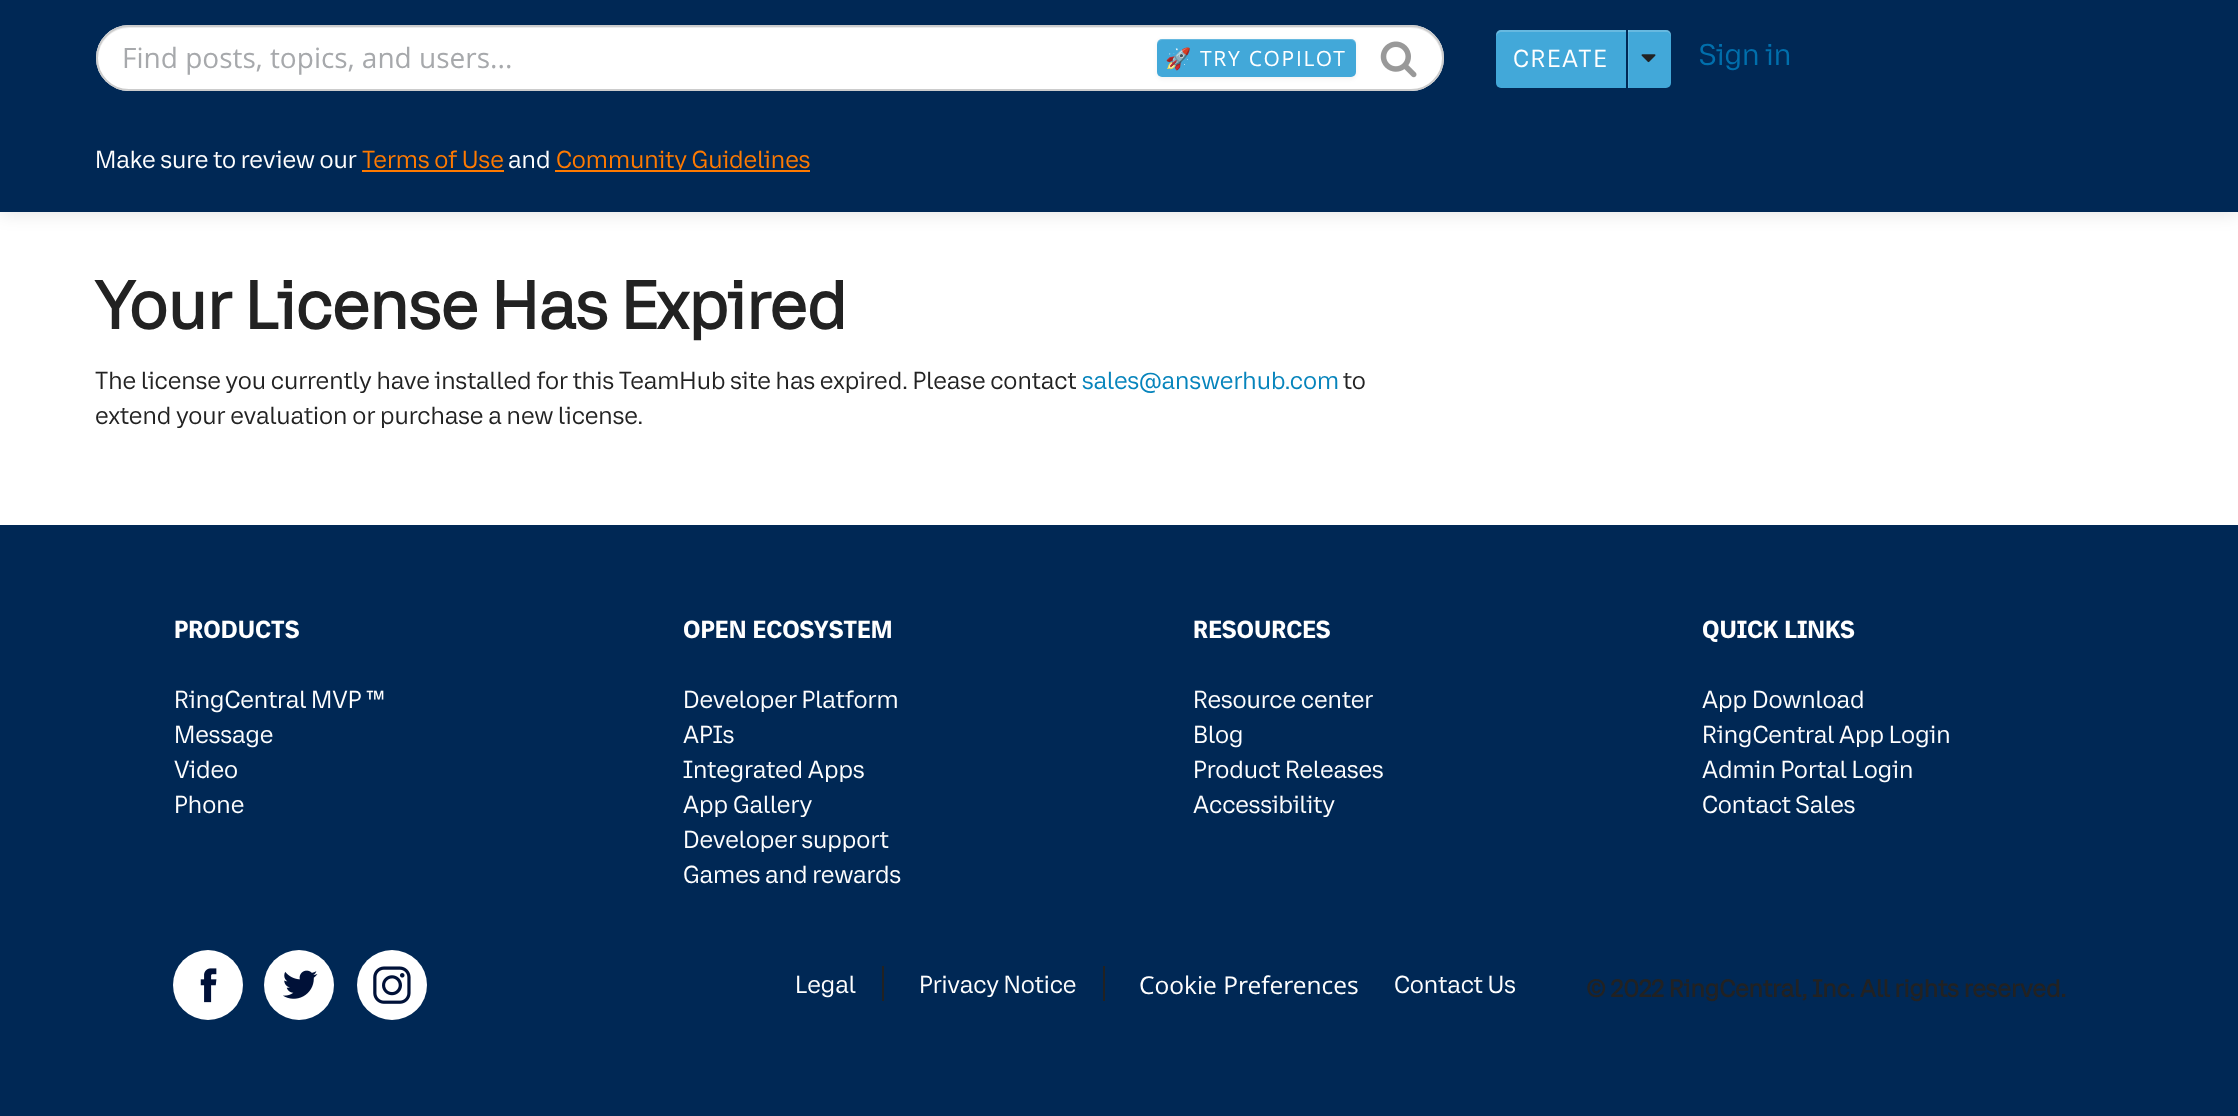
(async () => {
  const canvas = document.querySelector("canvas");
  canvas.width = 2238;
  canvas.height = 1116;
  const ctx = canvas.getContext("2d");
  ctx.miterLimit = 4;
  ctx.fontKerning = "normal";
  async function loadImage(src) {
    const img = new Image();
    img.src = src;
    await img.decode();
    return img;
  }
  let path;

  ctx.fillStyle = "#ffffff";
  ctx.fillRect(0, 0, 2238, 1116);
  ctx.fillStyle = "rgba(0, 0, 0, 0.1)";
  ctx.filter = "blur(9px)";
  ctx.beginPath();
  ctx.rect(0, -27, 2238, 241);
  ctx.fill();
  ctx.filter = "none";
  ctx.fillStyle = "#002855";
  ctx.fillRect(0, 0, 2238, 212);
  ctx.fillStyle = "#ffffff";
  ctx.beginPath();
  ctx.roundRect(96, 25, 1348, 66, 33);
  ctx.fill();
  ctx.fillStyle = "#ececec";
  path = new Path2D("M130 28H1410C1428 28 1441 41 1442 59C1443 41 1428 26 1410 26H130C112 26 97 41 98 59C99 41 112 28 130 28Z");
  ctx.fill(path);
  ctx.beginPath();
  ctx.roundRect(97, 26, 1346, 64, 32);
  ctx.strokeStyle = "#cccccc";
  ctx.lineWidth = 2;
  ctx.stroke();
  ctx.fillStyle = "rgba(0, 0, 0, 0.05)";
  ctx.filter = "blur(2px)";
  ctx.beginPath();
  ctx.roundRect(1157, 40, 199, 39, 5);
  ctx.fill();
  ctx.filter = "none";
  ctx.fillStyle = "#42a8d9";
  ctx.beginPath();
  ctx.roundRect(1157, 39, 199, 38, 5);
  ctx.fill();
  ctx.fillStyle = "rgba(255, 255, 255, 0.2)";
  path = new Path2D("M1162 40H1351C1354 40 1356 43 1356 46V44C1356 41 1354 39 1351 39H1162C1159 39 1157 41 1157 44V46C1157 43 1159 40 1162 40Z");
  ctx.fill(path);
  ctx.drawImage(await loadImage("img/1.png"), 1380, 41, 37, 37);
  ctx.fillStyle = "#42a8d9";
  ctx.beginPath();
  ctx.roundRect(1496, 30, 130, 58, [5, 0, 0, 5]);
  ctx.fill();
  ctx.fillStyle = "rgba(255, 255, 255, 0.2)";
  path = new Path2D("M1502 32H1626V30H1501C1498 30 1496 32 1496 35V37C1496 34 1499 32 1502 32Z");
  ctx.fill(path);
  ctx.fillStyle = "#42a8d9";
  ctx.beginPath();
  ctx.roundRect(1628, 30, 43, 58, [0, 5, 5, 0]);
  ctx.fill();
  ctx.fillStyle = "rgba(255, 255, 255, 0.2)";
  path = new Path2D("M1628 32H1666C1669 32 1671 34 1671 37V35C1671 32 1669 30 1666 30H1628Z");
  ctx.fill(path);
  ctx.fillStyle = "rgba(255, 255, 255, 0.12)";
  ctx.fillRect(1628, 30, 1, 58);
  ctx.drawImage(await loadImage("img/2.png"), 1641, 54, 15, 9);
  for (const [x, y, w, h, color] of [
    [362, 170, 142, 2, "#ff7a00"],
    [555, 170, 255, 2, "#ff7a00"],
    [0, 525, 2238, 591, "#002855"],
  ]) {
    ctx.fillStyle = color;
    ctx.fillRect(x, y, w, h);
  }
  ctx.fillStyle = "#ffffff";
  ctx.beginPath();
  ctx.arc(208, 985, 35, 0, Math.PI * 2);
  ctx.fill();
  ctx.beginPath();
  ctx.arc(299, 985, 35, 0, Math.PI * 2);
  ctx.fill();
  ctx.beginPath();
  ctx.arc(392, 985, 35, 0, Math.PI * 2);
  ctx.fill();
  ctx.drawImage(await loadImage("img/3.png"), 200, 968, 17, 35);
  ctx.drawImage(await loadImage("img/4.png"), 283, 970, 35, 29);
  ctx.drawImage(await loadImage("img/5.png"), 373, 966, 38, 38);
  ctx.fillStyle = "#222222";
  ctx.fillRect(882, 966, 2, 35);
  ctx.fillRect(1103, 966, 2, 35);
  ctx.font = "28px Open Sans";
  ctx.fillStyle = "#a7a9ac";
  ctx.fillText("Find posts, topics, and users...", 122, 68);
  ctx.letterSpacing = "1.75px";
  ctx.font = "21px Noto Color Emoji";
  ctx.fillStyle = "#ffffff";
  ctx.fillText("🚀", 1165, 66);
  ctx.font = "21px Open Sans";
  ctx.fillText("TRY COPILOT", 1200, 66);
  ctx.font = "24.5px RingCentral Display";
  ctx.fillText("CREATE", 1513, 67);
  ctx.letterSpacing = "0px";
  ctx.font = "30px RingCentral Display";
  ctx.fillStyle = "#006fac";
  ctx.fillText("Sign in", 1699, 65);
  ctx.font = "24.5px RingCentral Display";
  ctx.fillStyle = "#ffffff";
  ctx.fillText("Make sure to review our", 95, 168);
  ctx.fillStyle = "#ff7a00";
  ctx.fillText("Terms of Use", 362, 168);
  ctx.fillStyle = "#ffffff";
  ctx.fillText("and", 508, 168);
  ctx.fillStyle = "#ff7a00";
  ctx.fillText("Community Guidelines", 556, 168);
  ctx.font = "bold 67.4px RingCentral Display";
  ctx.fillStyle = "#222222";
  ctx.fillText("Your License Has Expired", 95, 329);
  ctx.font = "24.5px RingCentral Display";
  ctx.fillText("The license you currently have installed for this TeamHub site has expired. Please contact", 95, 389);
  ctx.fillStyle = "#0684bc";
  ctx.fillText("sales@answerhub.com", 1082, 389);
  ctx.fillStyle = "#222222";
  ctx.fillText("to", 1343, 389);
  ctx.fillText("extend your evaluation or purchase a new license.", 95, 424);
  ctx.font = "bold 24.5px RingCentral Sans";
  ctx.fillStyle = "#ffffff";
  ctx.fillText("PRODUCTS", 174, 638);
  ctx.font = "24.5px RingCentral Display";
  for (const [text, x, y] of [
    ["RingCentral MVP ™", 174, 708],
    ["Message", 174, 743],
    ["Video", 174, 778],
    ["Phone", 174, 813],
  ]) {
    ctx.fillText(text, x, y);
  }
  ctx.font = "bold 24.5px RingCentral Sans";
  ctx.fillText("OPEN ECOSYSTEM", 683, 638);
  ctx.font = "24.5px RingCentral Display";
  for (const [text, x, y] of [
    ["Developer Platform", 683, 708],
    ["APIs", 683, 743],
    ["Integrated Apps", 683, 778],
    ["App Gallery", 683, 813],
    ["Developer support", 683, 848],
    ["Games and rewards", 683, 883],
  ]) {
    ctx.fillText(text, x, y);
  }
  ctx.font = "bold 24.5px RingCentral Sans";
  ctx.fillText("RESOURCES", 1193, 638);
  ctx.font = "24.5px RingCentral Display";
  for (const [text, x, y] of [
    ["Resource center", 1193, 708],
    ["Blog", 1193, 743],
    ["Product Releases", 1193, 778],
    ["Accessibility", 1193, 813],
  ]) {
    ctx.fillText(text, x, y);
  }
  ctx.font = "bold 24.5px RingCentral Sans";
  ctx.fillText("QUICK LINKS", 1702, 638);
  ctx.font = "24.5px RingCentral Display";
  for (const [text, x, y] of [
    ["App Download", 1702, 708],
    ["RingCentral App Login", 1702, 743],
    ["Admin Portal Login", 1702, 778],
    ["Contact Sales", 1702, 813],
    ["Legal", 795, 993],
    ["Privacy Notice", 919, 993],
  ]) {
    ctx.fillText(text, x, y);
  }
  ctx.font = "24.5px Open Sans";
  ctx.fillText("Cookie Preferences", 1139, 994);
  ctx.font = "24.5px RingCentral Display";
  ctx.fillText("Contact Us", 1394, 993);
  ctx.font = "bold 24.5px RingCentral Display";
  ctx.fillStyle = "#222222";
  ctx.fillText("© 2022 RingCentral, Inc. All rights reserved.", 1586, 997);
})();
